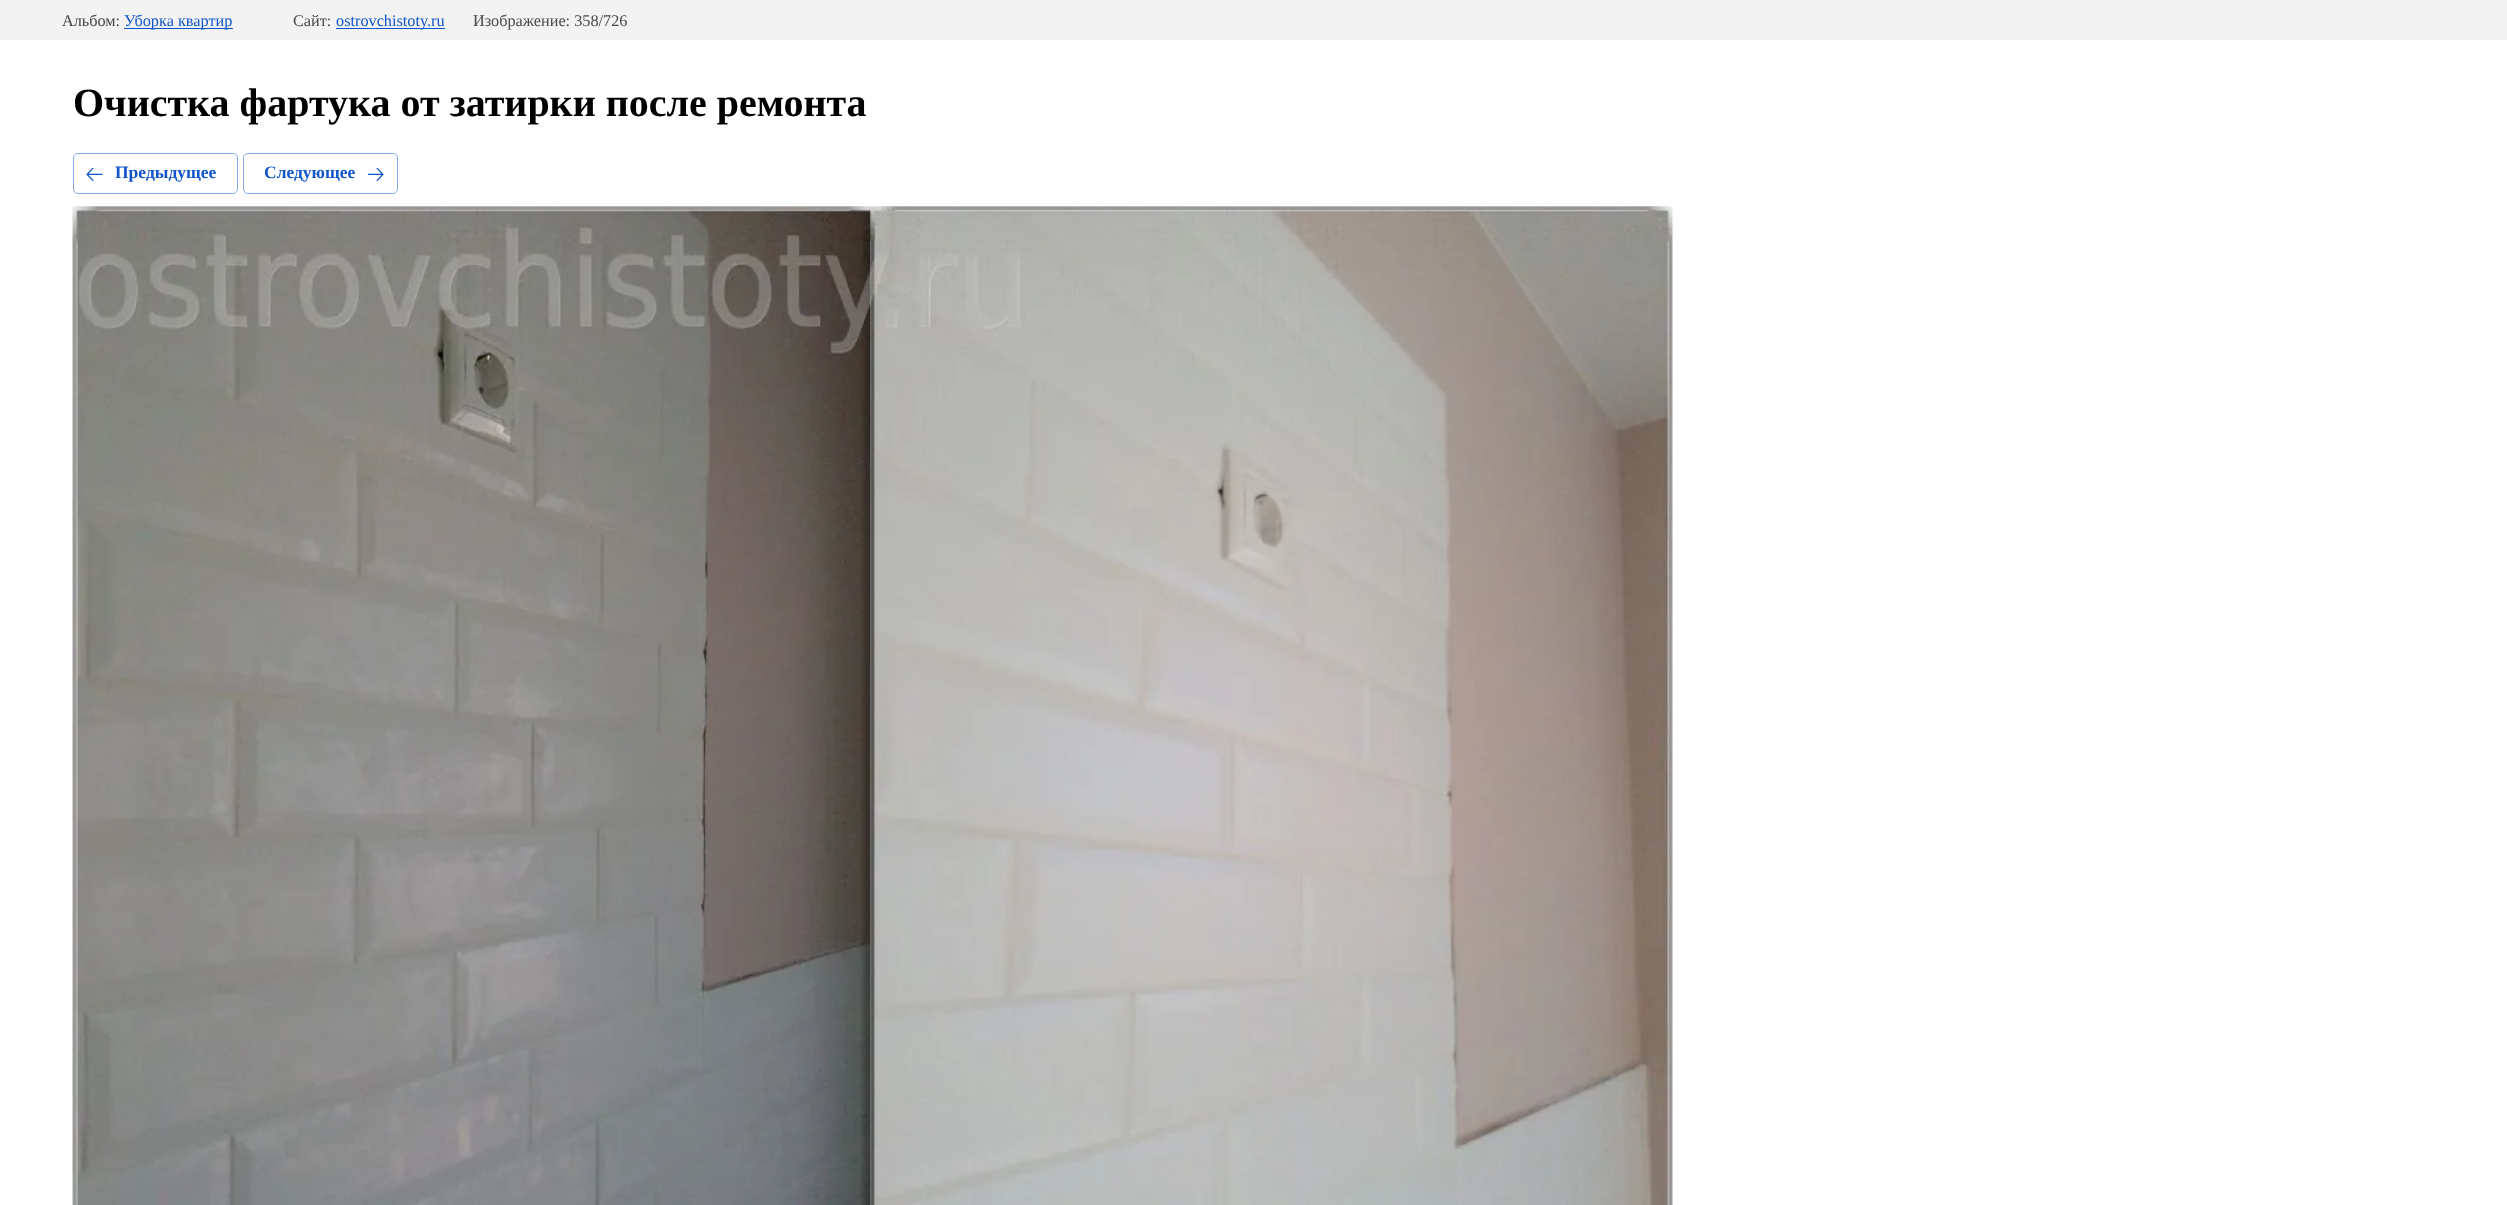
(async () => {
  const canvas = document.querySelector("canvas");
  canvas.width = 2507;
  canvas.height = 1205;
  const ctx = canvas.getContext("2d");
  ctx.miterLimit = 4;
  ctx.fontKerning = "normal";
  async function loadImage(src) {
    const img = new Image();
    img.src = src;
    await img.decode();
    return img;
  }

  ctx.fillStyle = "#ffffff";
  ctx.fillRect(0, 0, 2507, 1205);
  for (const [x, y, w, h, color] of [
    [0, 0, 2507, 40, "#f3f3f3"],
    [124, 28, 109, 1, "#1155cc"],
    [336, 28, 109, 1, "#1155cc"],
  ]) {
    ctx.fillStyle = color;
    ctx.fillRect(x, y, w, h);
  }
  ctx.beginPath();
  ctx.roundRect(73.5, 153.5, 164, 40, 4.5);
  ctx.strokeStyle = "#88aae6";
  ctx.stroke();
  ctx.drawImage(await loadImage("img/1.png"), 86, 168, 17, 13);
  ctx.beginPath();
  ctx.roundRect(243.5, 153.5, 154, 40, 4.5);
  ctx.stroke();
  ctx.drawImage(await loadImage("img/2.png"), 368, 168, 16, 13);
  ctx.drawImage(await loadImage("img/3.png"), 72, 206, 1601, 999);
  ctx.font = "16.25px Liberation Serif";
  ctx.fillStyle = "#484848";
  ctx.fillText("Альбом:", 62, 26);
  ctx.fillStyle = "#1155cc";
  ctx.fillText("Уборка квартир", 124, 26);
  ctx.fillStyle = "#484848";
  ctx.fillText("Сайт:", 293, 26);
  ctx.fillStyle = "#1155cc";
  ctx.fillText("ostrovchistoty.ru", 336, 26);
  ctx.fillStyle = "#484848";
  ctx.fillText("Изображение: 358/726", 473, 26);
  ctx.font = "bold 40px Liberation Serif";
  ctx.fillStyle = "#000000";
  ctx.fillText("Очистка фартука от затирки после ремонта", 73, 116);
  ctx.font = "bold 17.5px Liberation Serif";
  ctx.fillStyle = "#1155cc";
  ctx.fillText("Предыдущее", 115, 178);
  ctx.fillText("Следующее", 264, 178);
})();
